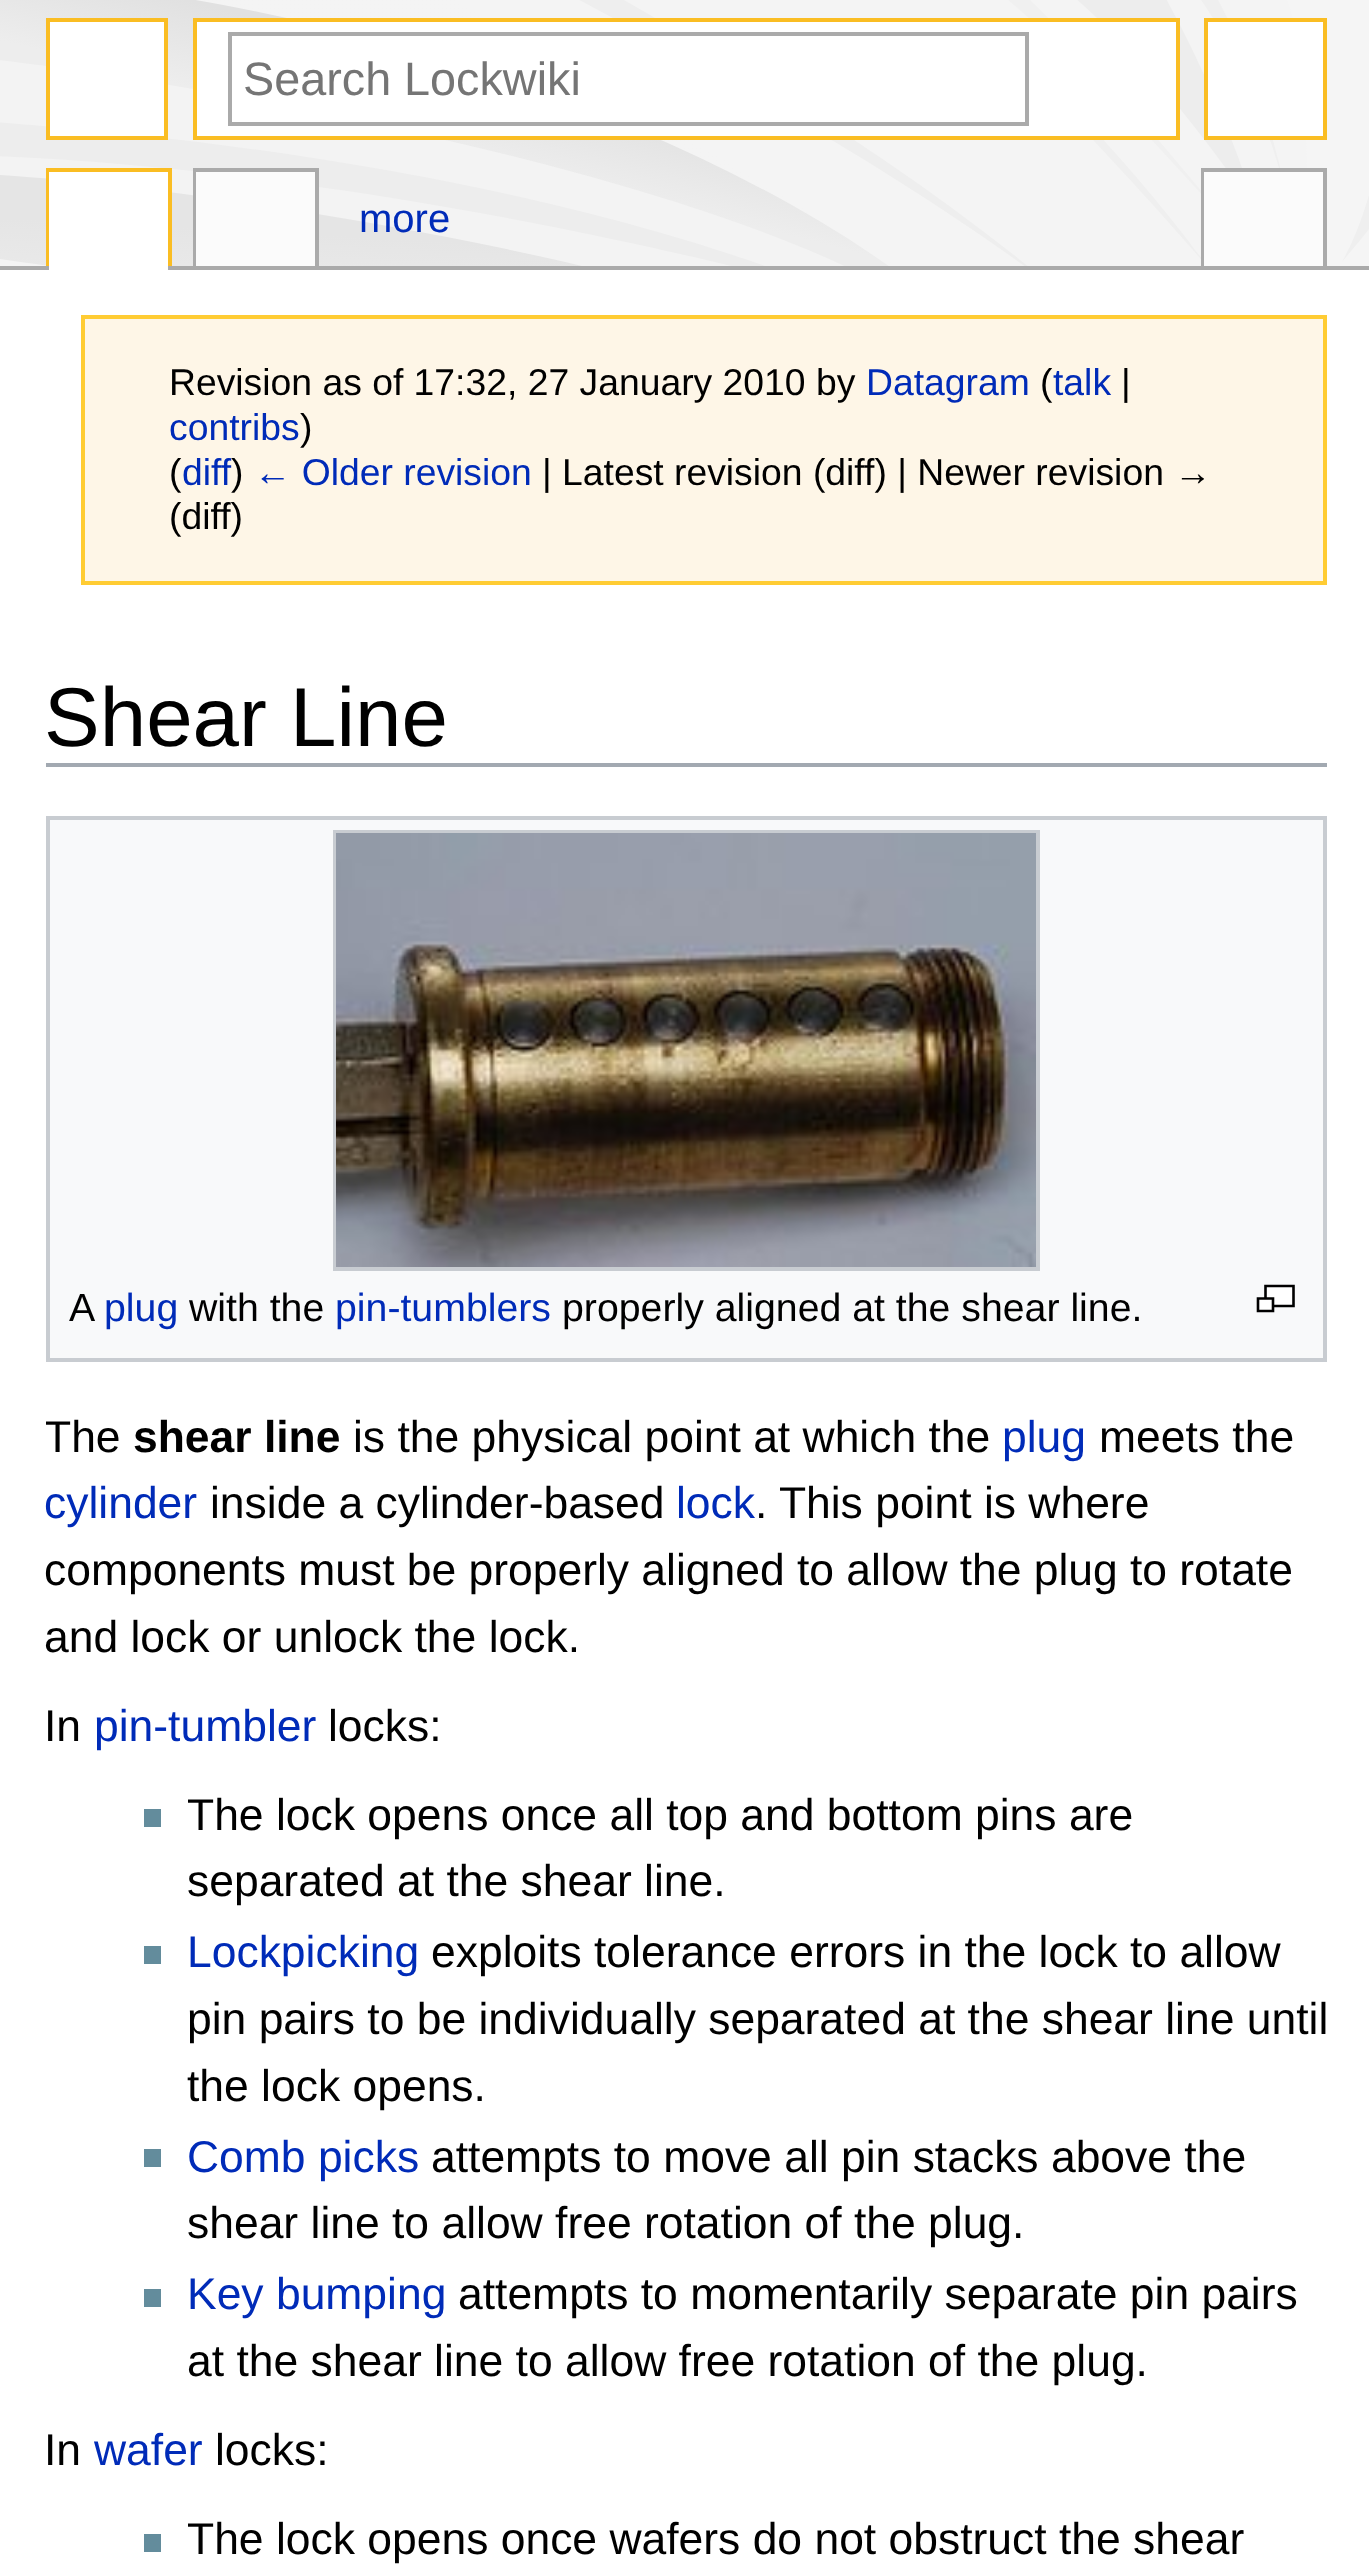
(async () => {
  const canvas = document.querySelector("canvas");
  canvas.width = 1369;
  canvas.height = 2564;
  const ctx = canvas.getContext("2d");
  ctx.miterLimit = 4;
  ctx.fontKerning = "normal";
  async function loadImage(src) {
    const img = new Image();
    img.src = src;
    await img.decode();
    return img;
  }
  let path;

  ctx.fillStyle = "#ffffff";
  ctx.fillRect(0, 0, 1369, 2564);
  ctx.drawImage(await loadImage("img/1.png"), 0, 0, 1369, 266);
  ctx.beginPath();
  ctx.rect(48, 20, 118, 118);
  ctx.fill();
  ctx.strokeStyle = "#fabd23";
  ctx.lineWidth = 4;
  ctx.stroke();
  ctx.beginPath();
  ctx.rect(195, 20, 983, 118);
  ctx.fill();
  ctx.stroke();
  ctx.strokeStyle = "#aaaaaa";
  ctx.strokeRect(230, 34, 797, 90);
  ctx.beginPath();
  ctx.rect(1206, 20, 119, 118);
  ctx.fill();
  ctx.strokeStyle = "#fabd23";
  ctx.stroke();
  for (const [x, y, w, h, color] of [
    [46, 168, 126, 4, "#fabd23"],
    [168, 168, 4, 102, "#fabd23"],
    [46, 168, 4, 102, "#fabd23"],
    [193, 168, 126, 4, "#aaaaaa"],
    [315, 168, 4, 102, "#aaaaaa"],
    [193, 168, 4, 102, "#aaaaaa"],
    [1201, 168, 126, 4, "#aaaaaa"],
    [1323, 168, 4, 102, "#aaaaaa"],
    [1201, 168, 4, 102, "#aaaaaa"],
    [0, 266, 1369, 4, "#aaaaaa"],
    [49, 172, 119, 98, "#ffffff"],
    [196, 172, 119, 94, "#fbfbfb"],
    [1204, 172, 119, 94, "#fbfbfb"],
  ]) {
    ctx.fillStyle = color;
    ctx.fillRect(x, y, w, h);
  }
  ctx.fillStyle = "#fef6e7";
  ctx.beginPath();
  ctx.rect(83, 317, 1242, 266);
  ctx.fill();
  ctx.strokeStyle = "#ffcc33";
  ctx.stroke();
  ctx.fillStyle = "#a2a9b1";
  ctx.fillRect(46, 763, 1281, 4);
  ctx.fillStyle = "#f8f9fa";
  ctx.beginPath();
  ctx.rect(48, 818, 1277, 542);
  ctx.fill();
  ctx.strokeStyle = "#c8ccd1";
  ctx.stroke();
  ctx.strokeRect(335, 832, 703, 437);
  ctx.drawImage(await loadImage("img/2.png"), 336, 833, 700, 434);
  ctx.fillStyle = "#ffffff";
  ctx.fillRect(1266, 1287, 27, 18);
  path = new Path2D("M1265.5 1286H1293.5V1306H1265.5Z");
  ctx.strokeStyle = "#000000";
  ctx.lineWidth = 2.6;
  ctx.stroke(path);
  ctx.fillRect(1259, 1299, 13, 11);
  path = new Path2D("M1258 1298.5H1273V1311H1258Z");
  ctx.stroke(path);
  for (const [x, y, w, h, color] of [
    [144, 1809, 17, 18, "#638c9c"],
    [144, 1946, 17, 18, "#638c9c"],
    [144, 2149, 17, 18, "#638c9c"],
    [144, 2289, 17, 18, "#638c9c"],
    [144, 2534, 17, 18, "#638c9c"],
  ]) {
    ctx.fillStyle = color;
    ctx.fillRect(x, y, w, h);
  }
  ctx.font = "46.75px Liberation Sans";
  ctx.fillStyle = "#757575";
  ctx.fillText("Search Lockwiki", 243, 95);
  ctx.font = "40px Liberation Sans";
  ctx.fillStyle = "#002bb8";
  ctx.fillText("more", 359, 232);
  ctx.font = "37.3px Liberation Sans";
  ctx.fillStyle = "#000000";
  ctx.fillText("Revision as of 17:32, 27 January 2010 by", 169, 395);
  ctx.fillStyle = "#002bb8";
  ctx.fillText("Datagram", 866, 395);
  ctx.fillStyle = "#000000";
  ctx.fillText("(", 1040, 395);
  ctx.fillStyle = "#002bb8";
  ctx.fillText("talk", 1053, 395);
  ctx.fillStyle = "#000000";
  ctx.fillText("|", 1121, 395);
  ctx.fillStyle = "#002bb8";
  ctx.fillText("contribs", 169, 440);
  ctx.fillStyle = "#000000";
  ctx.fillText(")", 300, 440);
  ctx.fillText("(", 169, 485);
  ctx.fillStyle = "#002bb8";
  ctx.fillText("diff", 182, 485);
  ctx.fillStyle = "#000000";
  ctx.fillText(")", 231, 485);
  ctx.fillStyle = "#002bb8";
  ctx.fillText("← Older revision", 254, 485);
  ctx.fillStyle = "#000000";
  ctx.fillText("| Latest revision (diff) | Newer revision →", 542, 485);
  ctx.fillText("(diff)", 169, 529);
  ctx.font = "83.5px Liberation Sans";
  ctx.fillText("Shear Line", 44, 746);
  ctx.font = "39.25px Liberation Sans";
  ctx.fillText("A", 69, 1321);
  ctx.fillStyle = "#002bb8";
  ctx.fillText("plug", 104, 1321);
  ctx.fillStyle = "#000000";
  ctx.fillText("with the", 189, 1321);
  ctx.fillStyle = "#002bb8";
  ctx.fillText("pin-tumblers", 335, 1321);
  ctx.fillStyle = "#000000";
  ctx.fillText("properly aligned at the shear line.", 562, 1321);
  ctx.save();
  ctx.beginPath();
  ctx.rect(46, 315, 1281, 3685);
  ctx.clip();
  ctx.font = "44.45px Liberation Sans";
  ctx.fillText("The", 44, 1452);
  ctx.restore();
  ctx.font = "bold 44.45px Liberation Sans";
  ctx.fillText("shear line", 133, 1452);
  ctx.font = "44.45px Liberation Sans";
  ctx.fillText("is the physical point at which the", 353, 1452);
  ctx.fillStyle = "#002bb8";
  ctx.fillText("plug", 1002, 1452);
  ctx.fillStyle = "#000000";
  ctx.fillText("meets the", 1099, 1452);
  ctx.fillStyle = "#002bb8";
  ctx.fillText("cylinder", 44, 1518);
  ctx.fillStyle = "#000000";
  ctx.fillText("inside a cylinder-based", 210, 1518);
  ctx.fillStyle = "#002bb8";
  ctx.fillText("lock", 676, 1518);
  ctx.fillStyle = "#000000";
  ctx.fillText(". This point is where", 755, 1518);
  ctx.wordSpacing = "-0.1px";
  ctx.fillText("components must be properly aligned to allow the plug to rotate", 44, 1585);
  ctx.wordSpacing = "0px";
  ctx.fillText("and lock or unlock the lock.", 44, 1652);
  ctx.fillText("In", 44, 1741);
  ctx.fillStyle = "#002bb8";
  ctx.fillText("pin-tumbler", 94, 1741);
  ctx.fillStyle = "#000000";
  for (const [text, x, y] of [
    ["locks:", 328, 1741],
    ["The lock opens once all top and bottom pins are", 187, 1830],
    ["separated at the shear line.", 187, 1896],
  ]) {
    ctx.fillText(text, x, y);
  }
  ctx.fillStyle = "#002bb8";
  ctx.fillText("Lockpicking", 187, 1967);
  ctx.fillStyle = "#000000";
  for (const [text, x, y] of [
    ["exploits tolerance errors in the lock to allow", 431, 1967],
    ["pin pairs to be individually separated at the shear line until", 187, 2034],
    ["the lock opens.", 187, 2101],
  ]) {
    ctx.fillText(text, x, y);
  }
  ctx.fillStyle = "#002bb8";
  ctx.fillText("Comb picks", 187, 2172);
  ctx.fillStyle = "#000000";
  ctx.fillText("attempts to move all pin stacks above the", 431, 2172);
  ctx.fillText("shear line to allow free rotation of the plug.", 187, 2238);
  ctx.fillStyle = "#002bb8";
  ctx.fillText("Key bumping", 187, 2309);
  ctx.fillStyle = "#000000";
  for (const [text, x, y] of [
    ["attempts to momentarily separate pin pairs", 458, 2309],
    ["at the shear line to allow free rotation of the plug.", 187, 2376],
    ["In", 44, 2465],
  ]) {
    ctx.fillText(text, x, y);
  }
  ctx.fillStyle = "#002bb8";
  ctx.fillText("wafer", 94, 2465);
  ctx.fillStyle = "#000000";
  ctx.fillText("locks:", 215, 2465);
  ctx.fillText("The lock opens once wafers do not obstruct the shear", 187, 2554);
})();
